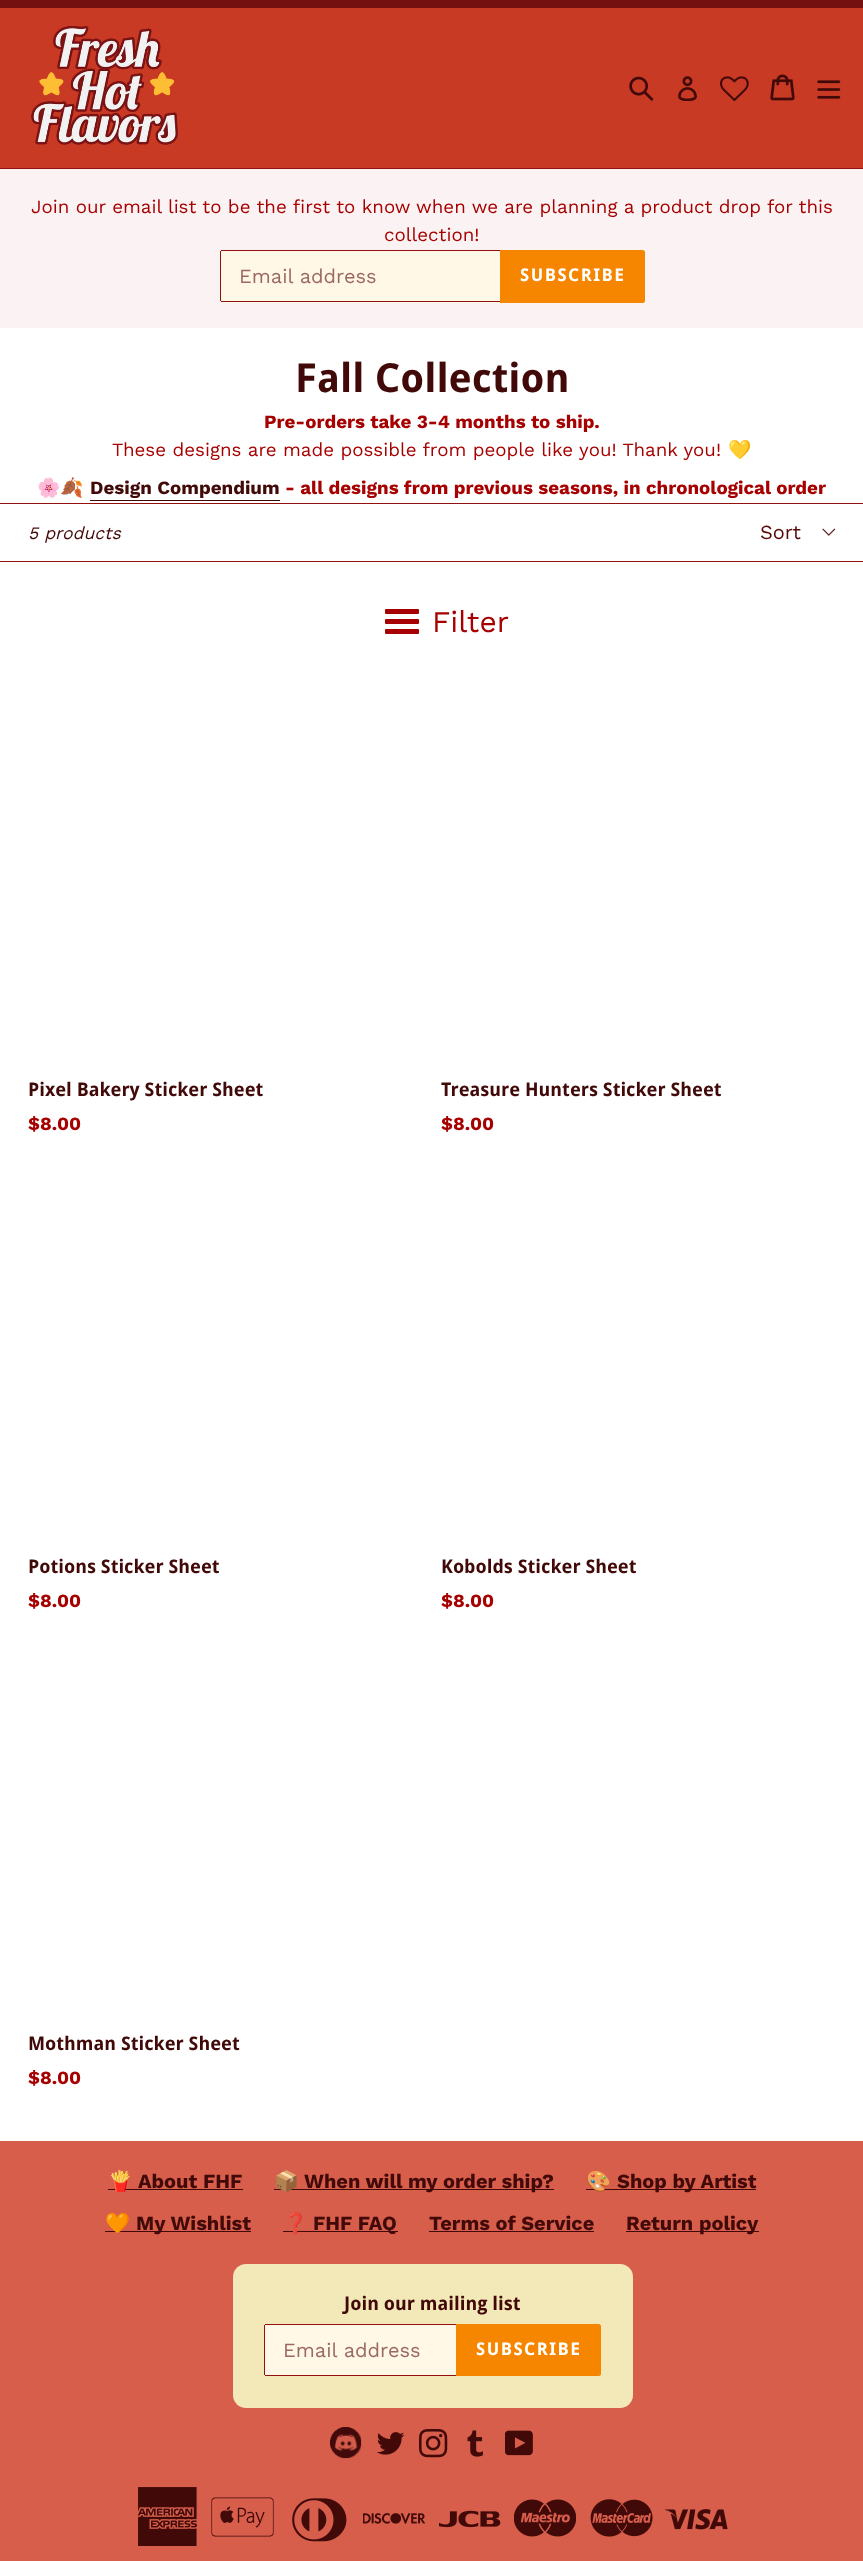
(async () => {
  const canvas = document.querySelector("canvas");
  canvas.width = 863;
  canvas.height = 2561;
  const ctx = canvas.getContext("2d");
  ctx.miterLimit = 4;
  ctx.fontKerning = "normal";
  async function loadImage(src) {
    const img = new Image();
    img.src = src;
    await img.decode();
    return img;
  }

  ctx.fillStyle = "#ffffff";
  ctx.fillRect(0, 0, 863, 2561);
  for (const [x, y, w, h, color] of [
    [0, 0, 863, 8, "#751010"],
    [0, 8, 863, 160, "#c83a24"],
    [0, 168, 863, 1, "#921010"],
  ]) {
    ctx.fillStyle = color;
    ctx.fillRect(x, y, w, h);
  }
  ctx.drawImage(await loadImage("img/1.png"), 31, 26, 147, 119);
  ctx.drawImage(await loadImage("img/2.png"), 629, 76, 25, 25);
  ctx.drawImage(await loadImage("img/3.png"), 678, 76, 19, 25);
  ctx.drawImage(await loadImage("img/4.png"), 720, 76, 29, 25);
  ctx.drawImage(await loadImage("img/5.png"), 770, 74, 25, 27);
  ctx.drawImage(await loadImage("img/6.png"), 817, 80, 24, 19);
  ctx.fillStyle = "#fbf3f3";
  ctx.fillRect(0, 169, 863, 159);
  ctx.fillStyle = "#fff8e7";
  ctx.beginPath();
  ctx.roundRect(220, 250, 280, 53, [2.5, 0, 0, 2.5]);
  ctx.fill();
  for (const [x, y, w, h, color] of [
    [221, 250, 279, 1, "#921010"],
    [221, 301, 279, 1, "#921010"],
    [220, 251, 1, 50, "#921010"],
  ]) {
    ctx.fillStyle = color;
    ctx.fillRect(x, y, w, h);
  }
  ctx.fillStyle = "#f68500";
  ctx.beginPath();
  ctx.roundRect(500, 250, 145, 53, [0, 2.5, 2.5, 0]);
  ctx.fill();
  for (const [x, y, w, h, color] of [
    [90, 500, 190, 1, "#420909"],
    [0, 503, 863, 1, "#921010"],
    [0, 561, 863, 1, "#921010"],
  ]) {
    ctx.fillStyle = color;
    ctx.fillRect(x, y, w, h);
  }
  ctx.drawImage(await loadImage("img/7.png"), 822, 528, 14, 8);
  ctx.fillStyle = "#a70000";
  ctx.beginPath();
  ctx.roundRect(385, 619, 34, 5, 1);
  ctx.fill();
  ctx.beginPath();
  ctx.roundRect(385, 609, 34, 5, 1);
  ctx.fill();
  ctx.beginPath();
  ctx.roundRect(385, 629, 34, 5, 1);
  ctx.fill();
  for (const [x, y, w, h, color] of [
    [0, 2141, 863, 420, "#d65e4b"],
    [108, 2189, 135, 1, "#420909"],
    [274, 2189, 280, 1, "#420909"],
    [586, 2189, 170, 1, "#420909"],
    [105, 2231, 146, 1, "#420909"],
    [283, 2231, 115, 1, "#420909"],
    [429, 2231, 165, 1, "#420909"],
    [626, 2231, 133, 1, "#420909"],
  ]) {
    ctx.fillStyle = color;
    ctx.fillRect(x, y, w, h);
  }
  ctx.fillStyle = "#f3e8b8";
  ctx.beginPath();
  ctx.roundRect(233, 2264, 400, 144, 13);
  ctx.fill();
  ctx.fillStyle = "#fff8e7";
  ctx.beginPath();
  ctx.roundRect(264, 2324, 192, 52, [2.5, 0, 0, 2.5]);
  ctx.fill();
  for (const [x, y, w, h, color] of [
    [265, 2324, 191, 1, "#921010"],
    [265, 2375, 191, 1, "#921010"],
    [264, 2325, 1, 50, "#921010"],
  ]) {
    ctx.fillStyle = color;
    ctx.fillRect(x, y, w, h);
  }
  ctx.fillStyle = "#f68500";
  ctx.beginPath();
  ctx.roundRect(456, 2324, 145, 52, [0, 2.5, 2.5, 0]);
  ctx.fill();
  ctx.drawImage(await loadImage("img/8.png"), 330, 2427, 32, 32);
  ctx.drawImage(await loadImage("img/9.png"), 376, 2432, 29, 23);
  ctx.drawImage(await loadImage("img/10.png"), 419, 2429, 29, 29);
  ctx.drawImage(await loadImage("img/11.png"), 467, 2430, 16, 27);
  ctx.drawImage(await loadImage("img/12.png"), 505, 2430, 28, 26);
  ctx.drawImage(await loadImage("img/13.png"), 138, 2487, 59, 59);
  ctx.drawImage(await loadImage("img/14.png"), 211, 2497, 63, 40);
  ctx.drawImage(await loadImage("img/15.png"), 292, 2498, 55, 44);
  ctx.drawImage(await loadImage("img/16.png"), 363, 2513, 62, 11);
  ctx.drawImage(await loadImage("img/17.png"), 439, 2510, 62, 18);
  ctx.drawImage(await loadImage("img/18.png"), 514, 2499, 62, 38);
  ctx.drawImage(await loadImage("img/19.png"), 590, 2499, 63, 38);
  ctx.drawImage(await loadImage("img/20.png"), 665, 2509, 63, 21);
  ctx.font = "18.75px Work Sans";
  ctx.fillStyle = "#a70000";
  ctx.fillText("Join our email list to be the first to know when we are planning a product drop for this", 31, 213);
  ctx.fillText("collection!", 384, 241);
  ctx.font = "20px Work Sans";
  ctx.fillStyle = "#9b6962";
  ctx.fillText("Email address", 239, 283);
  ctx.letterSpacing = "1.5px";
  ctx.font = "bold 17.5px Droid Sans";
  ctx.fillStyle = "#ffffff";
  ctx.fillText("SUBSCRIBE", 520, 281);
  ctx.letterSpacing = "0px";
  ctx.font = "bold 40px Droid Sans";
  ctx.fillStyle = "#420909";
  ctx.fillText("Fall Collection", 295, 392);
  ctx.font = "bold 18.75px Work Sans";
  ctx.fillStyle = "#a70000";
  ctx.fillText("Pre-orders take 3-4 months to ship.", 264, 428);
  ctx.font = "18.75px Work Sans";
  ctx.fillText("These designs are made possible from people like you! Thank you!", 112, 456);
  ctx.font = "18.75px Noto Color Emoji";
  ctx.fillText("💛", 728, 456);
  ctx.fillText("🌸🍂", 37, 494);
  ctx.font = "bold 18.75px Work Sans";
  ctx.fillStyle = "#420909";
  ctx.fillText("Design Compendium", 90, 494);
  ctx.fillStyle = "#a70000";
  ctx.fillText("- all designs from previous seasons, in chronological order", 285, 494);
  ctx.font = "italic 17.5px Work Sans";
  ctx.fillStyle = "#420909";
  ctx.fillText("5 products", 28, 539);
  ctx.font = "20px Work Sans";
  ctx.fillStyle = "#580a0a";
  ctx.fillText("Sort", 760, 539);
  ctx.font = "30px Work Sans";
  ctx.fillStyle = "#a70000";
  ctx.fillText("Filter", 432, 632);
  ctx.font = "bold 18.75px Droid Sans";
  ctx.fillStyle = "#420909";
  ctx.fillText("Pixel Bakery Sticker Sheet", 28, 1096);
  ctx.font = "bold 18.75px Work Sans";
  ctx.fillStyle = "#a70000";
  ctx.fillText("$8.00", 28, 1130);
  ctx.font = "bold 18.75px Droid Sans";
  ctx.fillStyle = "#420909";
  ctx.fillText("Treasure Hunters Sticker Sheet", 441, 1096);
  ctx.font = "bold 18.75px Work Sans";
  ctx.fillStyle = "#a70000";
  ctx.fillText("$8.00", 441, 1130);
  ctx.font = "bold 18.75px Droid Sans";
  ctx.fillStyle = "#420909";
  ctx.fillText("Potions Sticker Sheet", 28, 1573);
  ctx.font = "bold 18.75px Work Sans";
  ctx.fillStyle = "#a70000";
  ctx.fillText("$8.00", 28, 1607);
  ctx.font = "bold 18.75px Droid Sans";
  ctx.fillStyle = "#420909";
  ctx.fillText("Kobolds Sticker Sheet", 441, 1573);
  ctx.font = "bold 18.75px Work Sans";
  ctx.fillStyle = "#a70000";
  ctx.fillText("$8.00", 441, 1607);
  ctx.font = "bold 18.75px Droid Sans";
  ctx.fillStyle = "#420909";
  ctx.fillText("Mothman Sticker Sheet", 28, 2050);
  ctx.font = "bold 18.75px Work Sans";
  ctx.fillStyle = "#a70000";
  ctx.fillText("$8.00", 28, 2084);
  ctx.font = "bold 20px Noto Color Emoji";
  ctx.fillStyle = "#420909";
  ctx.fillText("🍟", 108, 2188);
  ctx.font = "bold 20px Work Sans";
  ctx.fillText("About FHF", 138, 2188);
  ctx.font = "bold 20px Noto Color Emoji";
  ctx.fillText("📦", 274, 2188);
  ctx.font = "bold 20px Work Sans";
  ctx.fillText("When will my order ship?", 304, 2188);
  ctx.font = "bold 20px Noto Color Emoji";
  ctx.fillText("🎨", 586, 2188);
  ctx.font = "bold 20px Work Sans";
  ctx.fillText("Shop by Artist", 617, 2188);
  ctx.font = "bold 20px Noto Color Emoji";
  ctx.fillText("🧡", 105, 2230);
  ctx.font = "bold 20px Work Sans";
  ctx.fillText("My Wishlist", 136, 2230);
  ctx.font = "bold 20px Noto Color Emoji";
  ctx.fillText("❓", 283, 2230);
  ctx.font = "bold 20px Work Sans";
  for (const [text, x, y] of [
    ["FHF FAQ", 313, 2230],
    ["Terms of Service", 429, 2230],
    ["Return policy", 626, 2230],
  ]) {
    ctx.fillText(text, x, y);
  }
  ctx.font = "bold 18.75px Droid Sans";
  ctx.fillText("Join our mailing list", 344, 2310);
  ctx.font = "20px Work Sans";
  ctx.fillStyle = "#9b6962";
  ctx.fillText("Email address", 283, 2357);
  ctx.letterSpacing = "1.5px";
  ctx.font = "bold 17.5px Droid Sans";
  ctx.fillStyle = "#ffffff";
  ctx.fillText("SUBSCRIBE", 476, 2355);
})();
